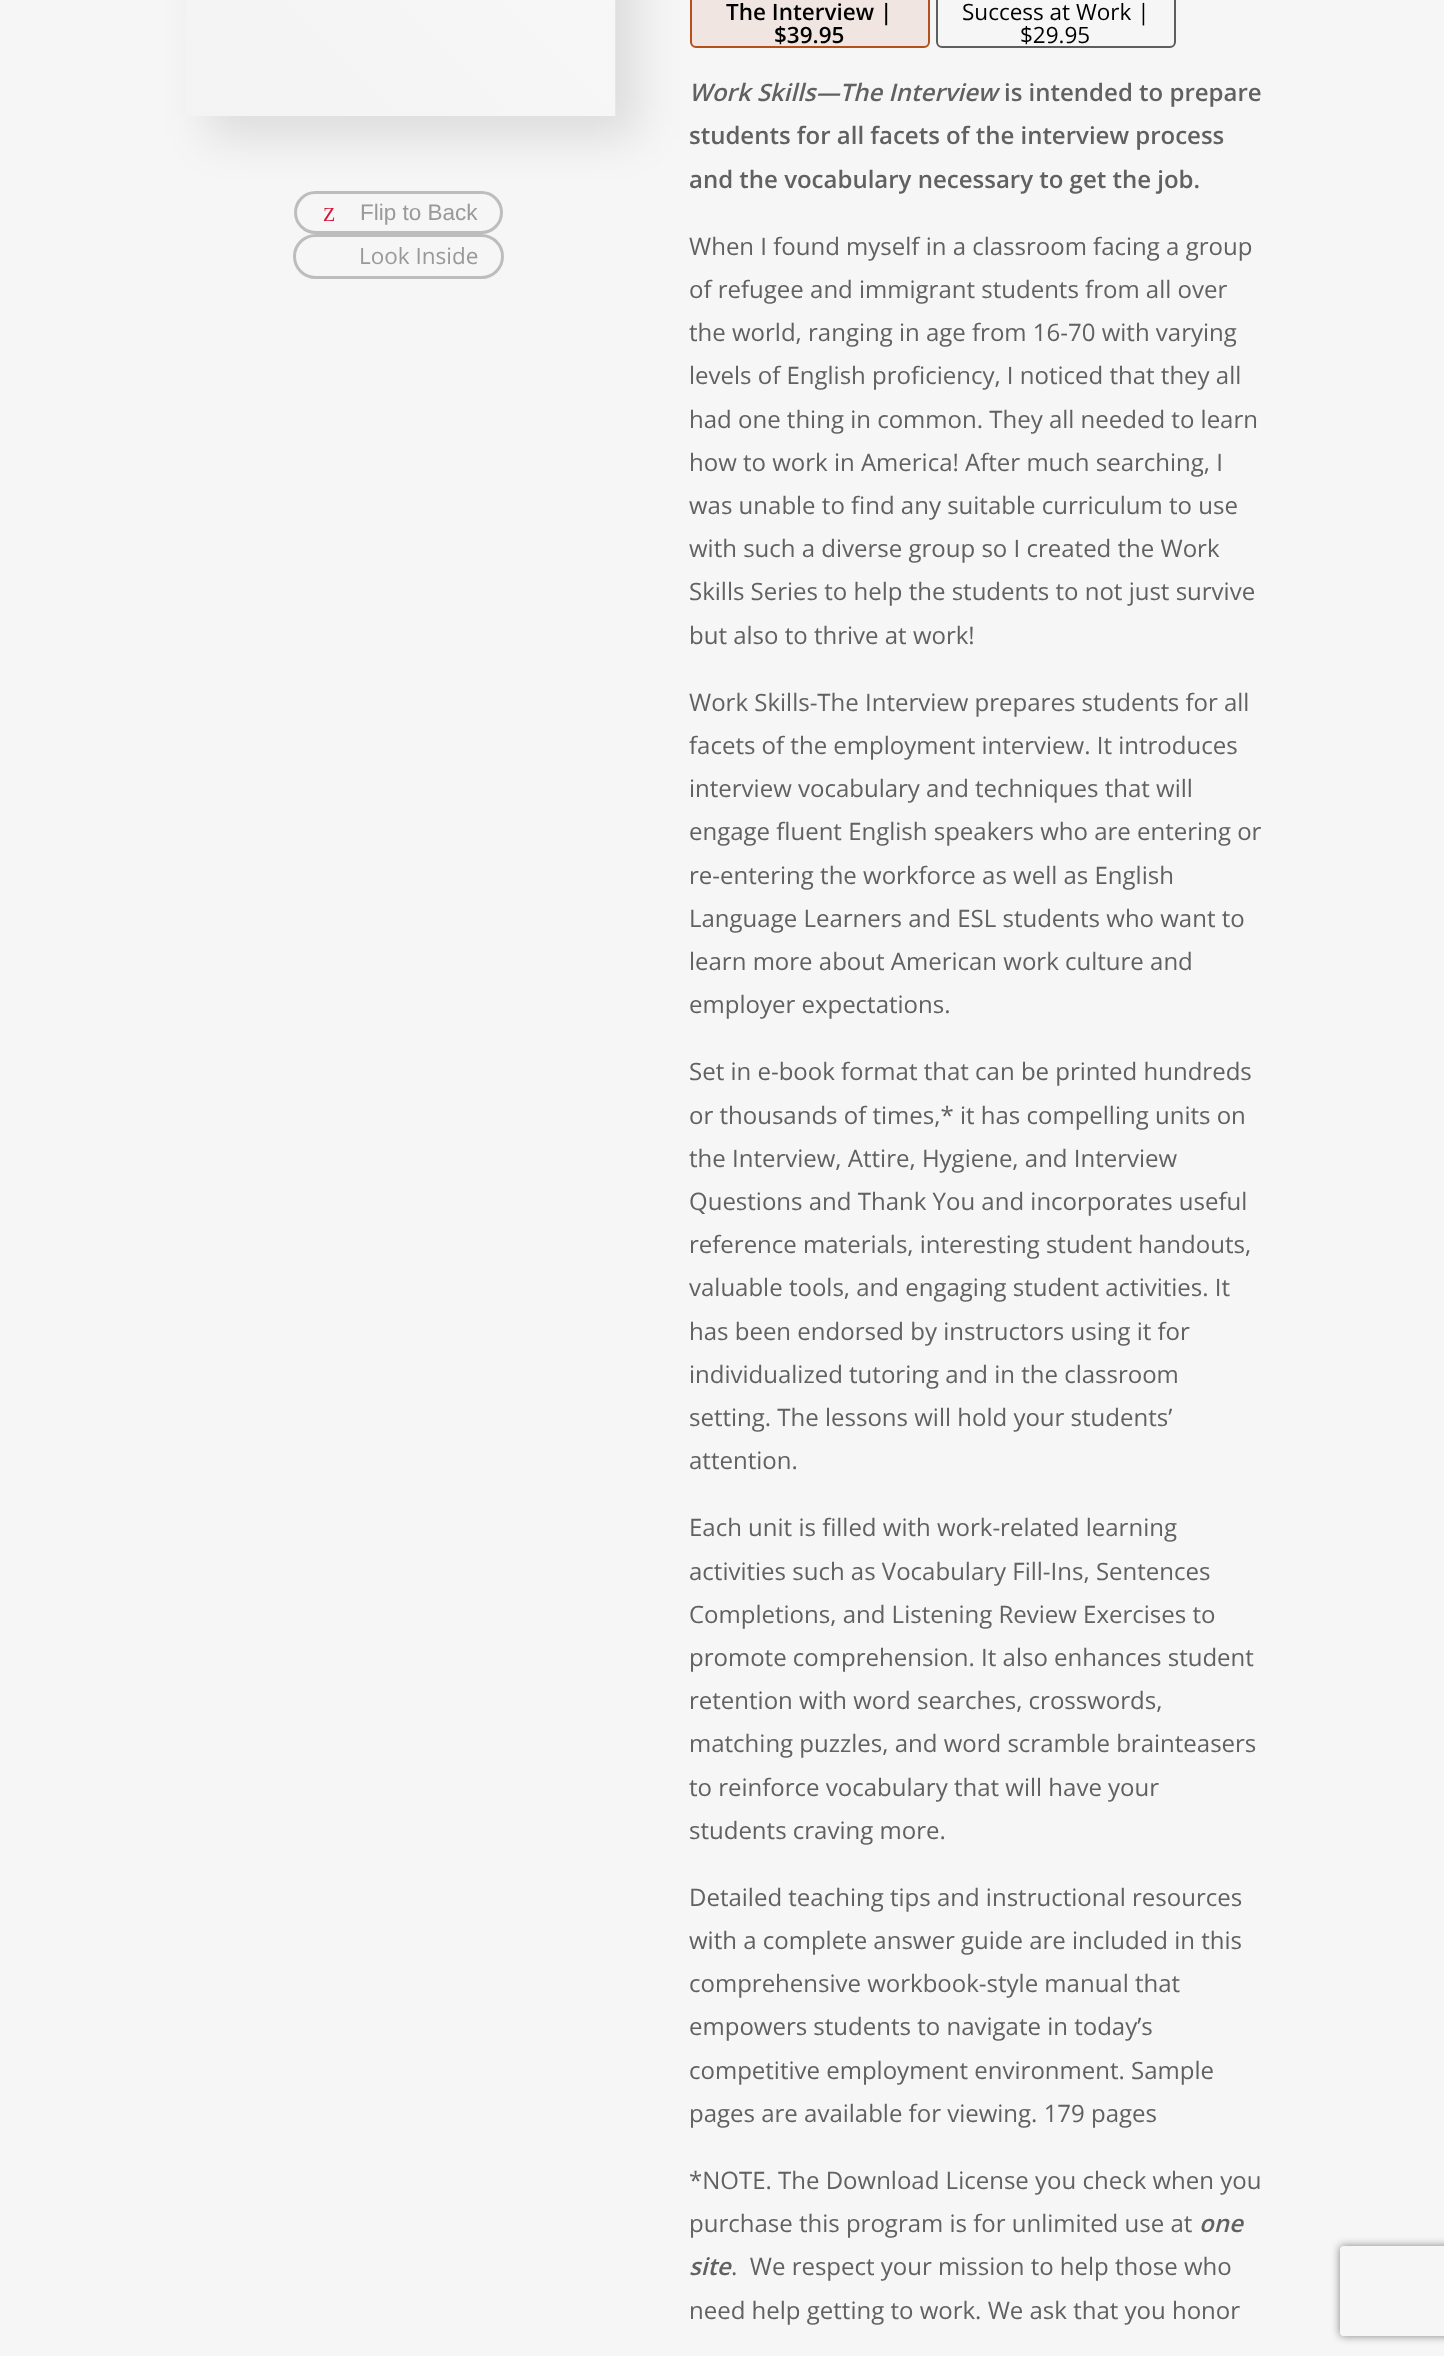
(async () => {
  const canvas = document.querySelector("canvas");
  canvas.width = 1444;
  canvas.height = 2356;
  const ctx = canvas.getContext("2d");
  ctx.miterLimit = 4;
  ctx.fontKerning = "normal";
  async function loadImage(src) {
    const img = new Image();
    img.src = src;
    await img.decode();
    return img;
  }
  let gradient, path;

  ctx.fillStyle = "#f6f6f6";
  ctx.fillRect(0, 0, 1444, 2356);
  ctx.drawImage(await loadImage("img/1.png"), 615, 0, 1, 116);
  ctx.beginPath();
  ctx.roundRect(295.5, 192.5, 206, 40, 20);
  ctx.strokeStyle = "#bdbdbd";
  ctx.lineWidth = 3;
  ctx.stroke();
  ctx.fillStyle = "rgba(0, 0, 0, 0.1)";
  ctx.filter = "blur(22.5px)";
  ctx.beginPath();
  ctx.rect(206, -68, 432, 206);
  ctx.fill();
  ctx.filter = "none";
  gradient = ctx.createLinearGradient(151, 84, 647, -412);
  gradient.addColorStop(0, "#f3f3f3");
  gradient.addColorStop(1, "#fafafa");
  ctx.fillStyle = gradient;
  ctx.fillRect(186, 0, 429, 116);
  ctx.beginPath();
  ctx.roundRect(294.5, 235.5, 208, 42, 21);
  ctx.stroke();
  ctx.fillStyle = "#f0e5e0";
  ctx.beginPath();
  ctx.roundRect(691, -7, 238, 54, 5);
  ctx.fill();
  ctx.strokeStyle = "#b6501a";
  ctx.lineWidth = 2;
  ctx.stroke();
  ctx.beginPath();
  ctx.roundRect(937, -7, 238, 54, 5);
  ctx.strokeStyle = "#5e5e5e";
  ctx.stroke();
  ctx.save();
  path = new Path2D("M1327 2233H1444V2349H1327ZM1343 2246H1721C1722.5 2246 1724 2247.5 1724 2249V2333C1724 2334.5 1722.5 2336 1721 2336H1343C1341.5 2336 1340 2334.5 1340 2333V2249C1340 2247.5 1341.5 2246 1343 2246Z");
  ctx.clip(path, "evenodd");
  ctx.fillStyle = "#808080";
  ctx.filter = "blur(4px)";
  ctx.beginPath();
  ctx.roundRect(1340, 2246, 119, 90, 3);
  ctx.fill();
  ctx.filter = "none";
  ctx.restore();
  ctx.font = "20px Liberation Serif";
  ctx.fillStyle = "#db1037";
  ctx.fillText("Z", 323, 221);
  ctx.font = "22.5px Liberation Sans";
  ctx.fillStyle = "#999999";
  ctx.fillText("Flip to Back", 360, 220);
  ctx.font = "22.5px Open Sans";
  ctx.fillText("Look Inside", 359, 264);
  ctx.font = "600 22.5px Open Sans";
  ctx.fillStyle = "#000000";
  ctx.fillText("The Interview |", 726, 20);
  ctx.fillText("$39.95", 774, 43);
  ctx.font = "22.5px Open Sans";
  ctx.fillText("Success at Work |", 962, 20);
  ctx.fillText("$29.95", 1020, 43);
  ctx.font = "italic 600 24px Open Sans";
  ctx.fillStyle = "#616161";
  ctx.fillText("Work Skills—The Interview", 689, 101);
  ctx.font = "600 24px Open Sans";
  for (const [text, x, y] of [
    ["is intended to prepare", 1004, 101],
    ["students for all facets of the interview process", 689, 144],
    ["and the vocabulary necessary to get the job.", 689, 188],
  ]) {
    ctx.fillText(text, x, y);
  }
  ctx.font = "24px Open Sans";
  for (const [text, x, y] of [
    ["When I found myself in a classroom facing a group", 689, 255],
    ["of refugee and immigrant students from all over", 689, 298],
    ["the world, ranging in age from 16-70 with varying", 689, 341],
    ["levels of English proficiency, I noticed that they all", 689, 384],
    ["had one thing in common. They all needed to learn", 689, 428],
    ["how to work in America! After much searching, I", 689, 471],
    ["was unable to find any suitable curriculum to use", 689, 514],
    ["with such a diverse group so I created the Work", 689, 557],
    ["Skills Series to help the students to not just survive", 689, 600],
    ["but also to thrive at work!", 689, 644],
    ["Work Skills-The Interview prepares students for all", 689, 711],
    ["facets of the employment interview. It introduces", 689, 754],
    ["interview vocabulary and techniques that will", 689, 797],
    ["engage fluent English speakers who are entering or", 689, 840],
    ["re-entering the workforce as well as English", 689, 884],
    ["Language Learners and ESL students who want to", 689, 927],
    ["learn more about American work culture and", 689, 970],
    ["employer expectations.", 689, 1013],
    ["Set in e-book format that can be printed hundreds", 689, 1080],
    ["or thousands of times,* it has compelling units on", 689, 1124],
    ["the Interview, Attire, Hygiene, and Interview", 689, 1167],
    ["Questions and Thank You and incorporates useful", 689, 1210],
    ["reference materials, interesting student handouts,", 689, 1253],
    ["valuable tools, and engaging student activities. It", 689, 1296],
    ["has been endorsed by instructors using it for", 689, 1340],
    ["individualized tutoring and in the classroom", 689, 1383],
    ["setting. The lessons will hold your students’", 689, 1426],
    ["attention.", 689, 1469],
    ["Each unit is filled with work-related learning", 689, 1536],
    ["activities such as Vocabulary Fill-Ins, Sentences", 689, 1580],
    ["Completions, and Listening Review Exercises to", 689, 1623],
    ["promote comprehension. It also enhances student", 689, 1666],
    ["retention with word searches, crosswords,", 689, 1709],
    ["matching puzzles, and word scramble brainteasers", 689, 1752],
    ["to reinforce vocabulary that will have your", 689, 1796],
    ["students craving more.", 689, 1839],
    ["Detailed teaching tips and instructional resources", 689, 1906],
    ["with a complete answer guide are included in this", 689, 1949],
    ["comprehensive workbook-style manual that", 689, 1992],
    ["empowers students to navigate in today’s", 689, 2035],
    ["competitive employment environment. Sample", 689, 2079],
    ["pages are available for viewing. 179 pages", 689, 2122],
    ["*NOTE. The Download License you check when you", 689, 2189],
    ["purchase this program is for unlimited use at", 689, 2232],
  ]) {
    ctx.fillText(text, x, y);
  }
  ctx.font = "italic 600 24px Open Sans";
  ctx.fillText("one", 1199, 2232);
  ctx.fillText("site", 689, 2275);
  ctx.font = "24px Open Sans";
  ctx.fillText(".  We respect your mission to help those who", 731, 2275);
  ctx.fillText("need help getting to work. We ask that you honor", 689, 2319);
})();
